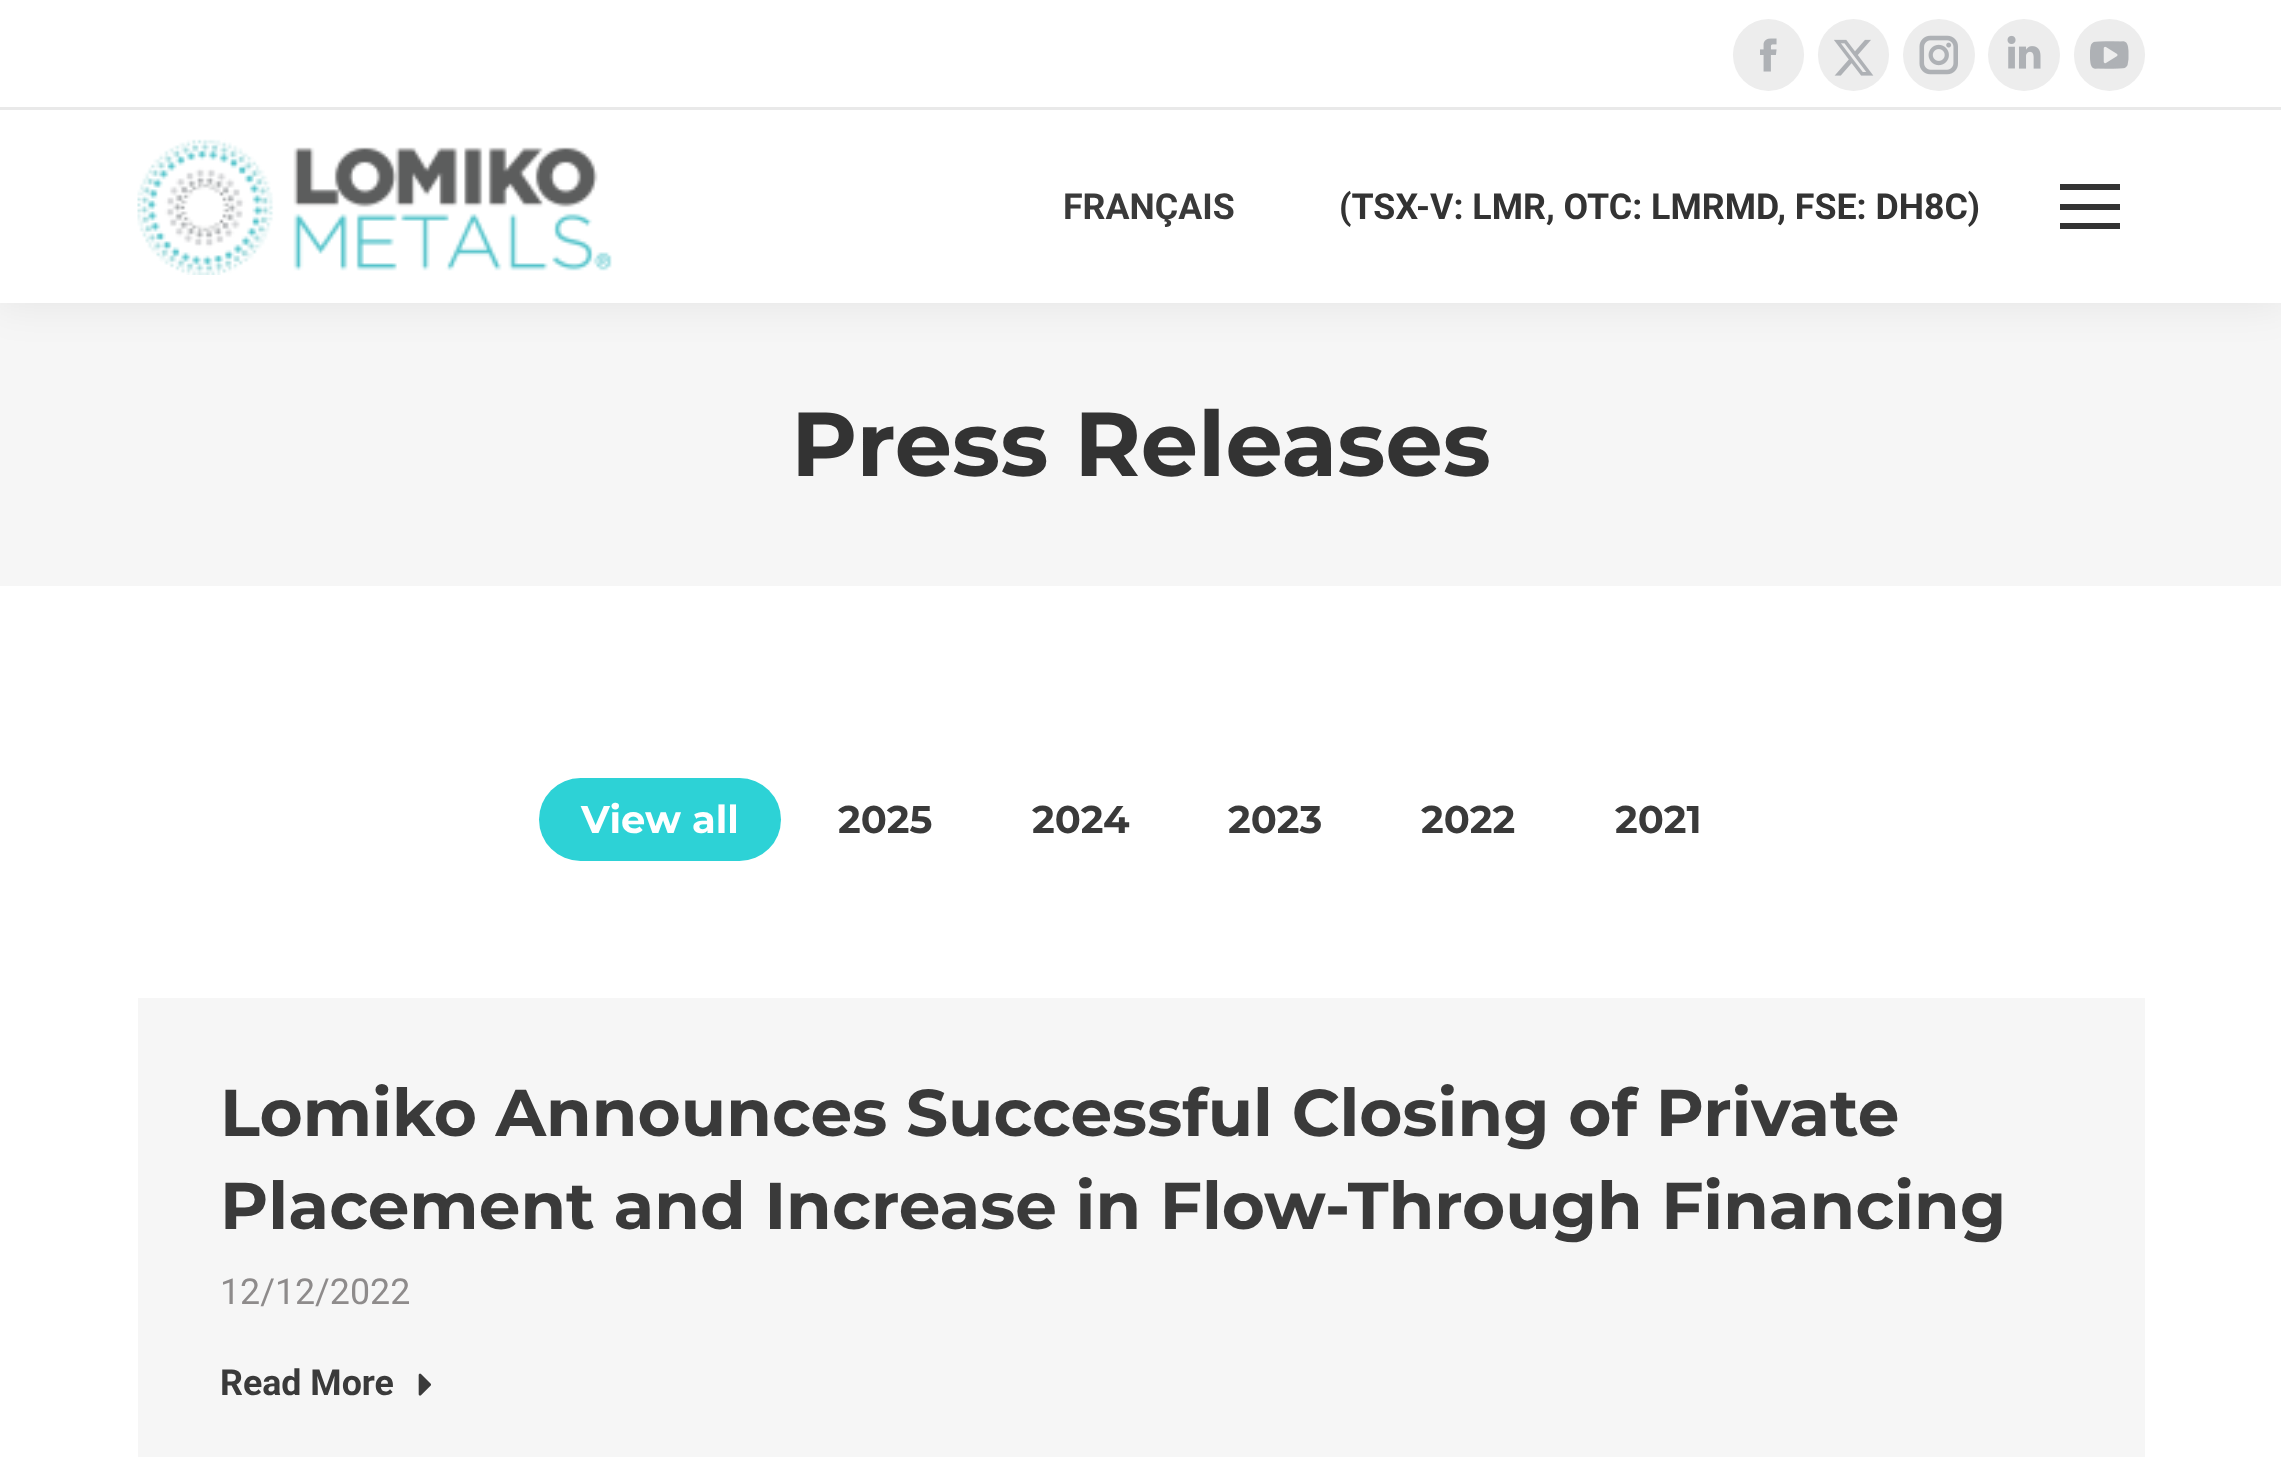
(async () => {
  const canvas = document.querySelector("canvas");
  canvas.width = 2281;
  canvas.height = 1457;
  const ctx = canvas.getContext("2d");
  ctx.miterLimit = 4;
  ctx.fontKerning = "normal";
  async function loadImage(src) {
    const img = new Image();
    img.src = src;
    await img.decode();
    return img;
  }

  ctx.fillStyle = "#ffffff";
  ctx.fillRect(0, 0, 2281, 1457);
  ctx.fillStyle = "#f6f6f6";
  ctx.fillRect(0, 303, 2281, 283);
  ctx.fillStyle = "rgba(0, 0, 0, 0.07)";
  ctx.filter = "blur(20.5px)";
  ctx.beginPath();
  ctx.rect(-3, -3, 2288, 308);
  ctx.fill();
  ctx.filter = "none";
  ctx.fillStyle = "#ffffff";
  ctx.fillRect(0, 0, 2281, 303);
  ctx.fillStyle = "#ededed";
  ctx.beginPath();
  ctx.roundRect(1733, 19, 71, 72, 35.5);
  ctx.fill();
  ctx.drawImage(await loadImage("img/1.png"), 1760, 38, 17, 34);
  ctx.beginPath();
  ctx.roundRect(1818, 19, 71, 72, 35.5);
  ctx.fill();
  ctx.drawImage(await loadImage("img/2.png"), 1834, 39, 40, 37);
  ctx.beginPath();
  ctx.arc(1939, 55, 36, 0, Math.PI * 2);
  ctx.fill();
  ctx.drawImage(await loadImage("img/3.png"), 1919, 35, 39, 40);
  ctx.beginPath();
  ctx.arc(2024, 55, 36, 0, Math.PI * 2);
  ctx.fill();
  ctx.drawImage(await loadImage("img/4.png"), 2007, 35, 34, 34);
  ctx.beginPath();
  ctx.roundRect(2074, 19, 71, 72, 35.5);
  ctx.fill();
  ctx.drawImage(await loadImage("img/5.png"), 2090, 41, 39, 28);
  ctx.fillStyle = "#e9e9e9";
  ctx.fillRect(0, 107, 2281, 3);
  ctx.drawImage(await loadImage("img/6.png"), 137, 139, 475, 136);
  for (const [x, y, w, h, color] of [
    [2060, 184, 60, 6, "#333333"],
    [2060, 204, 60, 6, "#333333"],
    [2060, 223, 60, 6, "#333333"],
  ]) {
    ctx.fillStyle = color;
    ctx.fillRect(x, y, w, h);
  }
  ctx.fillStyle = "#2dd2d6";
  ctx.beginPath();
  ctx.roundRect(539, 778, 242, 83, 41.5);
  ctx.fill();
  ctx.fillStyle = "#f6f6f6";
  ctx.fillRect(138, 998, 2007, 459);
  ctx.drawImage(await loadImage("img/7.png"), 418, 1373, 13, 23);
  ctx.font = "bold 35.75px Roboto";
  ctx.fillStyle = "#3a3a3a";
  ctx.fillText("FRANÇAIS", 1063, 219);
  ctx.fillStyle = "#333333";
  ctx.fillText("(TSX-V: LMR, OTC: LMRMD, FSE: DH8C)", 1339, 219);
  ctx.font = "bold 90.75px Montserrat";
  ctx.fillText("Press Releases", 791, 476);
  ctx.font = "bold 38.5px Montserrat";
  ctx.fillStyle = "#ffffff";
  ctx.fillText("View all", 581, 833);
  ctx.fillStyle = "#3a3a3a";
  for (const [text, x, y] of [
    ["2025", 838, 833],
    ["2024", 1032, 833],
    ["2023", 1228, 833],
    ["2022", 1421, 833],
    ["2021", 1615, 833],
  ]) {
    ctx.fillText(text, x, y);
  }
  ctx.font = "bold 66px Montserrat";
  ctx.fillText("Lomiko Announces Successful Closing of Private", 220, 1136);
  ctx.fillText("Placement and Increase in Flow-Through Financing", 220, 1229);
  ctx.font = "35.75px Roboto";
  ctx.fillStyle = "#8e8b8b";
  ctx.fillText("12/12/2022", 220, 1304);
  ctx.font = "bold 35.75px Roboto";
  ctx.fillStyle = "#3a3a3a";
  ctx.fillText("Read More", 220, 1395);
})();
